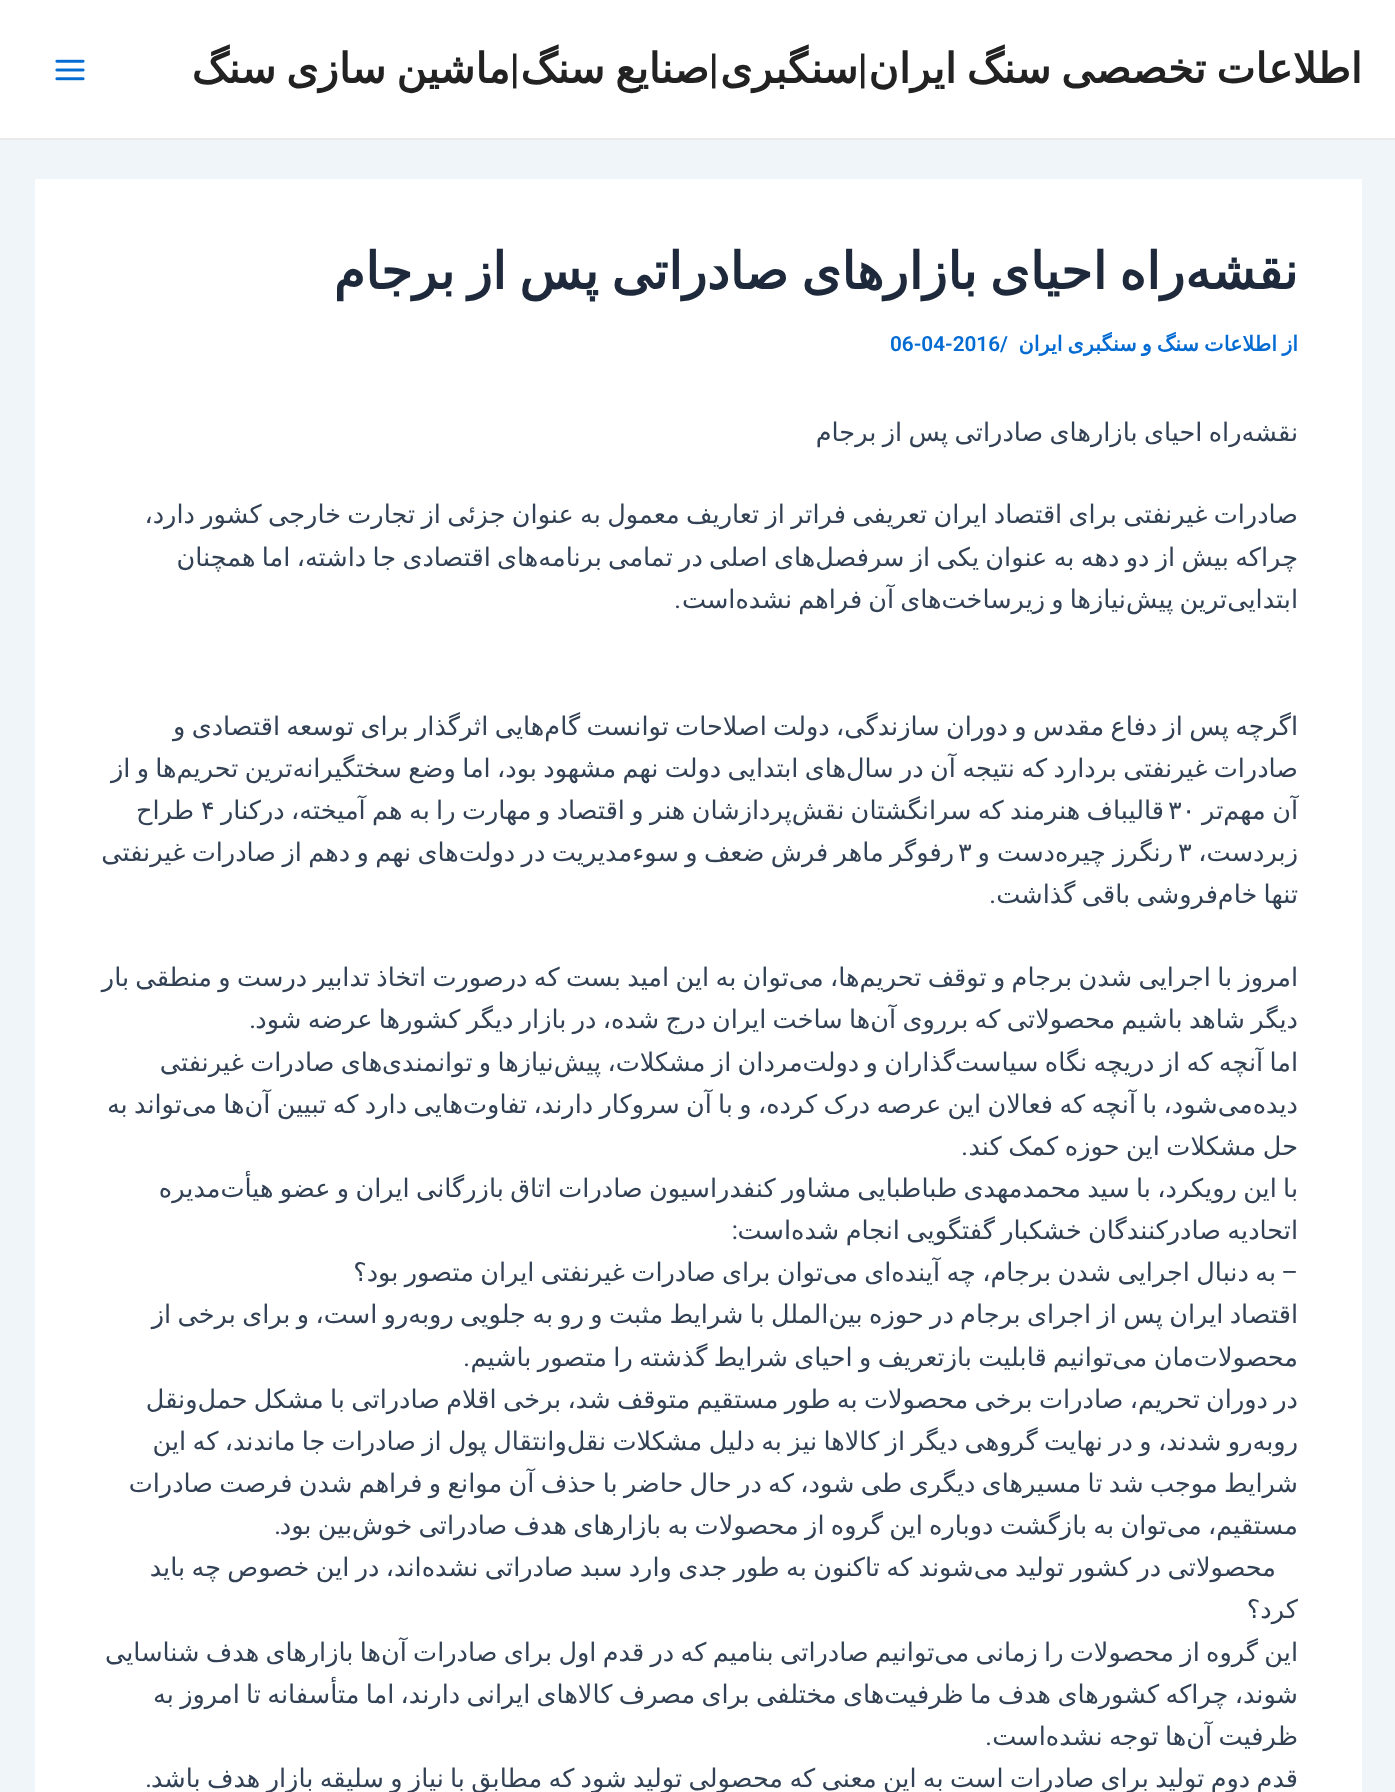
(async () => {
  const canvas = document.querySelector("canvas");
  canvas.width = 1395;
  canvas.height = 1792;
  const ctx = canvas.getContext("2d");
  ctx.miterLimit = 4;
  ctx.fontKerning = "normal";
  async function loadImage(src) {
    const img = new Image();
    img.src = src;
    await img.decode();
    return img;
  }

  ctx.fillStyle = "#f0f5fa";
  ctx.fillRect(0, 0, 1395, 1792);
  ctx.fillStyle = "#ffffff";
  ctx.fillRect(0, 0, 1395, 138);
  ctx.fillStyle = "#eaeaea";
  ctx.fillRect(0, 138, 1395, 2);
  ctx.drawImage(await loadImage("img/1.png"), 55, 59, 30, 22);
  ctx.fillStyle = "#ffffff";
  ctx.fillRect(35, 179, 1327, 1613);
  ctx.wordSpacing = "-3px";
  ctx.direction = "rtl";
  ctx.font = "bold 41.5px DejaVu Sans";
  ctx.fillStyle = "#222222";
  ctx.fillText("اطلاعات تخصصی سنگ ایران", 1362, 83);
  ctx.wordSpacing = "0px";
  ctx.font = "600 41.5px Roboto";
  ctx.fillText("|", 868, 83);
  ctx.font = "bold 41.5px DejaVu Sans";
  ctx.fillText("سنگبری", 858, 83);
  ctx.font = "600 41.5px Roboto";
  ctx.fillText("|", 719, 83);
  ctx.wordSpacing = "-3px";
  ctx.font = "bold 41.5px DejaVu Sans";
  ctx.fillText("صنایع سنگ", 709, 83);
  ctx.wordSpacing = "0px";
  ctx.font = "600 41.5px Roboto";
  ctx.fillText("|", 520, 83);
  ctx.wordSpacing = "-3px";
  ctx.font = "bold 41.5px DejaVu Sans";
  ctx.fillText("ماشین سازی سنگ", 510, 83);
  ctx.wordSpacing = "-3.5px";
  ctx.font = "bold 51.1px DejaVu Sans";
  ctx.fillStyle = "#1e293b";
  ctx.fillText("نقشه‌راه احیای بازارهای صادراتی پس از برجام", 1298, 289);
  ctx.wordSpacing = "0px";
  ctx.font = "bold 20.75px DejaVu Sans";
  ctx.fillStyle = "#046bd2";
  ctx.fillText("از", 1298, 351);
  ctx.wordSpacing = "-1.5px";
  ctx.fillText("اطلاعات سنگ و سنگبری ایران", 1277, 351);
  ctx.wordSpacing = "0px";
  ctx.direction = "ltr";
  ctx.font = "600 20.75px Roboto";
  ctx.fillText("/", 1000, 351);
  ctx.fillText("06-04-2016", 890, 351);
  ctx.wordSpacing = "-1.75px";
  ctx.direction = "rtl";
  ctx.font = "25.55px DejaVu Sans";
  ctx.fillStyle = "#334155";
  ctx.fillText("نقشه‌راه احیای بازارهای صادراتی پس از برجام", 1298, 441);
  ctx.wordSpacing = "-1.8px";
  ctx.fillText("صادرات غیرنفتی برای اقتصاد ایران تعریفی فراتر از تعاریف معمول به عنوان جزئی از تجارت خارجی کشور دارد،", 1298, 523);
  ctx.fillText("چراکه بیش از دو دهه به عنوان یکی از سرفصل‌های اصلی در تمامی برنامه‌های اقتصادی جا داشته،‌ اما همچنان", 1298, 566);
  ctx.wordSpacing = "-2px";
  ctx.fillText("ابتدایی‌ترین پیش‌نیازها و زیرساخت‌های آن فراهم نشده‌است", 1298, 608);
  ctx.wordSpacing = "0px";
  ctx.font = "25.55px Roboto";
  ctx.fillText(".", 681, 608);
  ctx.wordSpacing = "-1.8px";
  ctx.font = "25.55px DejaVu Sans";
  ctx.fillText("اگرچه پس از دفاع مقدس و دوران سازندگی، دولت اصلاحات توانست گام‌هایی اثرگذار برای توسعه اقتصادی و", 1298, 735);
  ctx.fillText("صادرات غیرنفتی بردارد که نتیجه آن در سال‌های ابتدایی دولت نهم مشهود بود، اما وضع سختگیرانه‌ترین تحریم‌ها و از", 1298, 777);
  ctx.wordSpacing = "-1.75px";
  ctx.fillText("آن مهم‌تر", 1298, 819);
  ctx.fillText("قالیباف هنرمند که سرانگشتان نقش‌پردازشان هنر و اقتصاد و مهارت را به هم آمیخته، در‌کنار", 1164, 819);
  ctx.wordSpacing = "0px";
  ctx.direction = "ltr";
  ctx.fillText("۳۰", 1168, 819);
  ctx.fillText("۴", 201, 819);
  ctx.direction = "rtl";
  ctx.fillText("طراح", 194, 819);
  ctx.fillText("زبردست،", 1298, 861);
  ctx.direction = "ltr";
  ctx.fillText("۳", 1178, 861);
  ctx.wordSpacing = "-1px";
  ctx.direction = "rtl";
  ctx.fillText("رنگرز چیره‌دست و", 1173, 861);
  ctx.wordSpacing = "-1.75px";
  ctx.fillText("رفوگر ماهر فرش ضعف و سوءمدیریت در دولت‌‌های نهم و دهم از صادرات غیرنفتی", 954, 861);
  ctx.wordSpacing = "0px";
  ctx.direction = "ltr";
  ctx.fillText("۳", 958, 861);
  ctx.wordSpacing = "-1.75px";
  ctx.direction = "rtl";
  ctx.fillText("تنها خام‌فروشی باقی گذاشت", 1298, 903);
  ctx.wordSpacing = "0px";
  ctx.font = "25.55px Roboto";
  ctx.fillText(".", 996, 903);
  ctx.wordSpacing = "-1.8px";
  ctx.font = "25.55px DejaVu Sans";
  ctx.fillText("امروز با اجرایی شدن برجام و توقف تحریم‌ها، می‌توان به این امید بست که درصورت اتخاذ تدابیر درست و منطقی بار", 1298, 986);
  ctx.fillText("دیگر شاهد باشیم محصولاتی که برروی آن‌ها ساخت ایران درج شده، در بازار دیگر کشورها عرضه شود", 1298, 1028);
  ctx.wordSpacing = "0px";
  ctx.font = "25.55px Roboto";
  ctx.fillText(".", 256, 1028);
  ctx.wordSpacing = "-1.8px";
  ctx.font = "25.55px DejaVu Sans";
  ctx.fillText("اما آنچه که از دریچه نگاه سیاست‌گذاران و دولت‌مردان از مشکلات، پیش‌نیازها و توانمندی‌های صادرات غیرنفتی", 1298, 1071);
  ctx.fillText("دیده‌می‌شود، با آنچه که فعالان این عرصه درک کرده، و با آن سروکار دارند، تفاوت‌هایی دارد که تبیین آن‌ها می‌تواند به", 1298, 1113);
  ctx.wordSpacing = "-1.5px";
  ctx.fillText("حل مشکلات این حوزه کمک کند", 1298, 1155);
  ctx.wordSpacing = "0px";
  ctx.font = "25.55px Roboto";
  ctx.fillText(".", 968, 1155);
  ctx.wordSpacing = "-1.8px";
  ctx.font = "25.55px DejaVu Sans";
  ctx.fillText("با این رویکرد، با سید محمدمهدی طباطبایی مشاور کنفدراسیون صادرات اتاق بازرگانی ایران و عضو هیأت‌مدیره", 1298, 1197);
  ctx.wordSpacing = "-1.75px";
  ctx.fillText("اتحادیه صادرکنندگان خشکبار گفتگویی انجام شده‌است", 1298, 1239);
  ctx.wordSpacing = "0px";
  ctx.font = "25.55px Roboto";
  ctx.fillText(":", 738, 1239);
  ctx.wordSpacing = "-1.75px";
  ctx.font = "25.55px DejaVu Sans";
  ctx.fillText("به دنبال اجرایی شدن برجام، چه آینده‌ای می‌توان برای صادرات غیرنفتی ایران متصور بود؟", 1276, 1281);
  ctx.wordSpacing = "0px";
  ctx.font = "25.55px Roboto";
  ctx.fillText("–", 1298, 1281);
  ctx.wordSpacing = "-1.8px";
  ctx.font = "25.55px DejaVu Sans";
  ctx.fillText("اقتصاد ایران پس از اجرای برجام در حوزه بین‌الملل با شرایط مثبت و رو به جلویی روبه‌رو است، و برای برخی از", 1298, 1323);
  ctx.wordSpacing = "-1.75px";
  ctx.fillText("محصولات‌مان می‌توانیم قابلیت بازتعریف و احیای شرایط گذشته را متصور باشیم", 1298, 1366);
  ctx.wordSpacing = "0px";
  ctx.font = "25.55px Roboto";
  ctx.fillText(".", 470, 1366);
  ctx.wordSpacing = "-1.8px";
  ctx.font = "25.55px DejaVu Sans";
  for (const [text, x, y] of [
    ["در دوران تحریم، صادرات برخی محصولات به طور مستقیم متوقف شد، برخی اقلام صادراتی با مشکل حمل‌ونقل", 1298, 1408],
    ["روبه‌رو شدند، و در نهایت گروهی دیگر از کالاها نیز به دلیل مشکلات نقل‌وانتقال پول از صادرات جا ماندند، که این", 1298, 1450],
    ["شرایط موجب شد تا مسیرهای دیگری طی شود، که در حال حاضر با حذف آن موانع و فراهم شدن فرصت صادرات", 1298, 1492],
    ["مستقیم، می‌توان به بازگشت دوباره این گروه از محصولات به بازارهای هدف صادراتی خوش‌بین بود", 1298, 1534],
  ]) {
    ctx.fillText(text, x, y);
  }
  ctx.wordSpacing = "0px";
  ctx.font = "25.55px Roboto";
  ctx.fillText(".", 281, 1534);
  ctx.wordSpacing = "-1.75px";
  ctx.font = "25.55px DejaVu Sans";
  ctx.fillText("محصولاتی در کشور تولید می‌شوند که تاکنون به طور جدی وارد سبد صادراتی نشده‌اند، در این خصوص چه باید", 1276, 1576);
  ctx.wordSpacing = "0px";
  ctx.fillText("کرد؟", 1298, 1618);
  ctx.wordSpacing = "-1.8px";
  ctx.fillText("این گروه از محصولات را زمانی می‌توانیم صادراتی بنامیم که در قدم اول برای صادرات آن‌ها بازارهای هدف شناسایی", 1298, 1661);
  ctx.fillText("شوند، چراکه کشورهای هدف ما ظرفیت‌های مختلفی برای مصرف کالاهای ایرانی دارند، اما متأسفانه تا امروز به", 1298, 1703);
  ctx.wordSpacing = "-1.75px";
  ctx.fillText("ظرفیت آن‌ها توجه نشده‌است", 1298, 1745);
  ctx.wordSpacing = "0px";
  ctx.font = "25.55px Roboto";
  ctx.fillText(".", 992, 1745);
  ctx.wordSpacing = "-1.8px";
  ctx.font = "25.55px DejaVu Sans";
  ctx.fillText("قدم دوم تولید برای صادرات است به این معنی که محصولی تولید شود که مطابق با نیاز و سلیقه بازار هدف باشد", 1298, 1787);
  ctx.wordSpacing = "0px";
  ctx.font = "25.55px Roboto";
  ctx.fillText(".", 152, 1787);
})();
